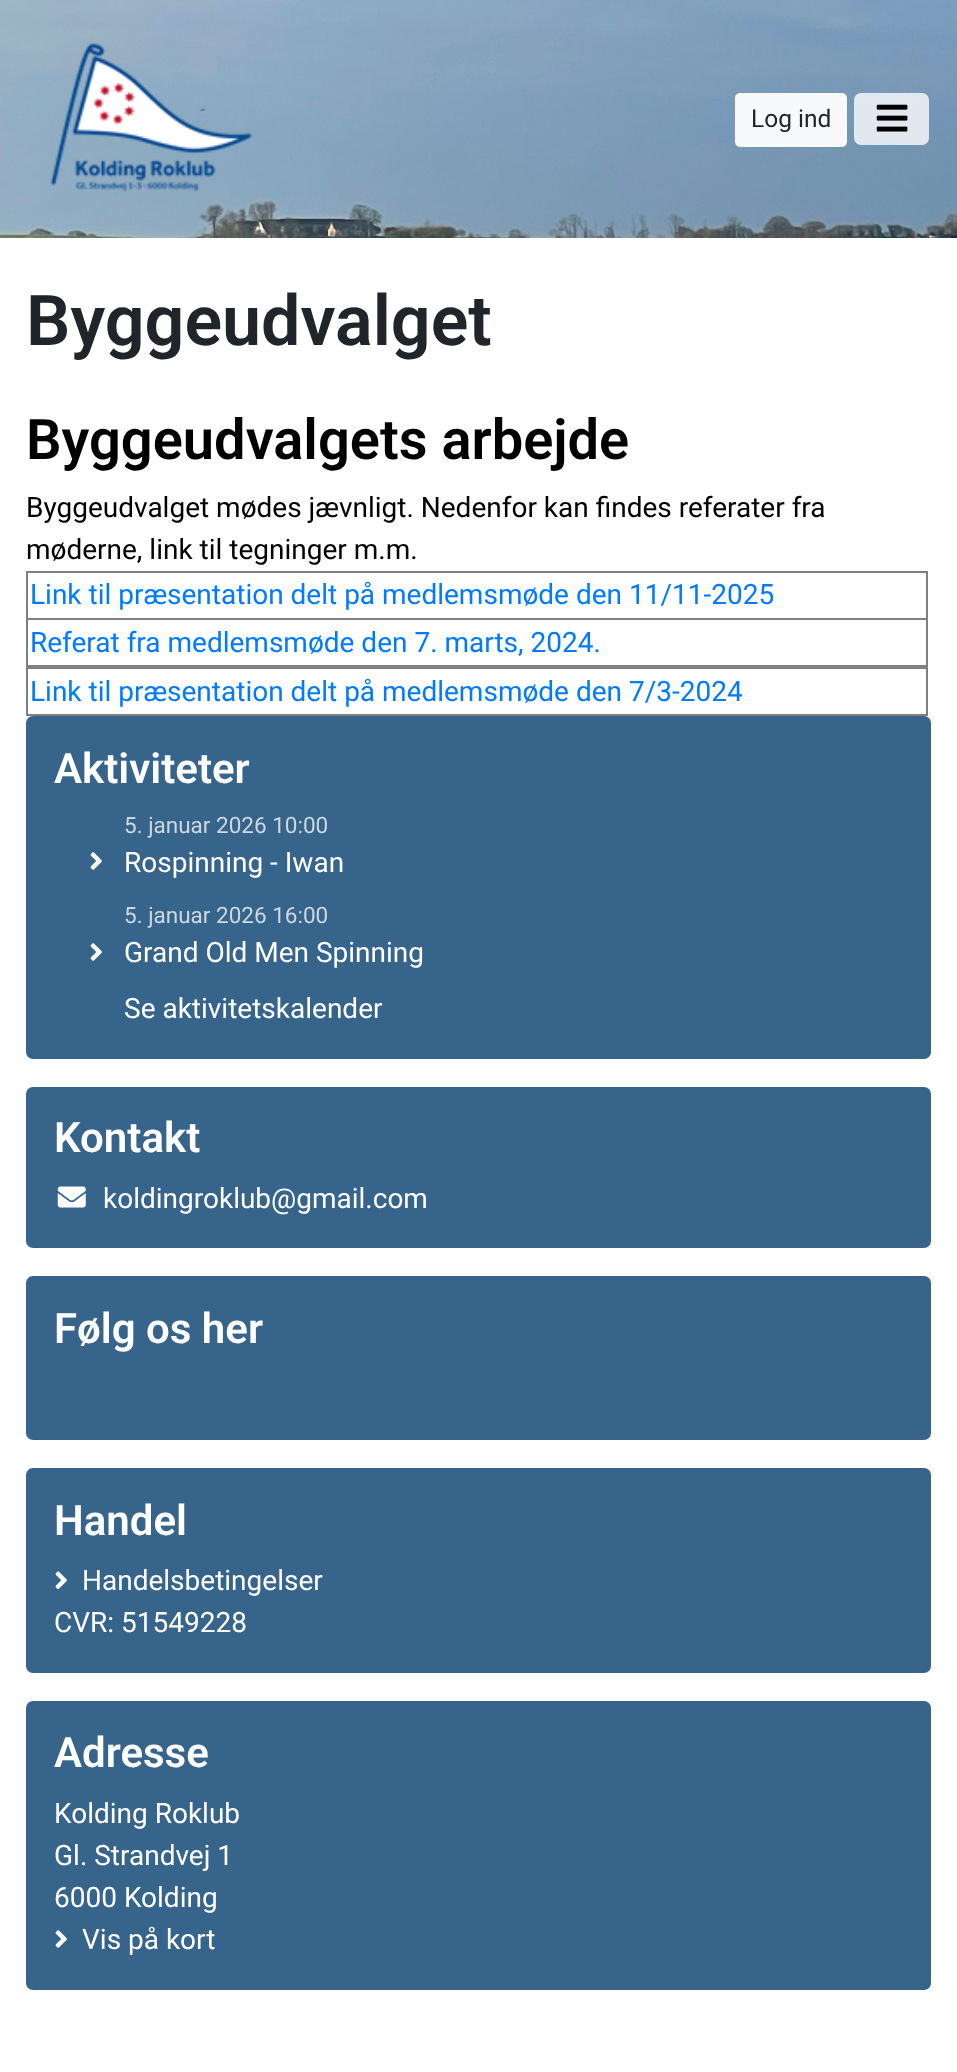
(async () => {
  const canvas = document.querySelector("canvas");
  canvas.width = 957;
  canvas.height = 2072;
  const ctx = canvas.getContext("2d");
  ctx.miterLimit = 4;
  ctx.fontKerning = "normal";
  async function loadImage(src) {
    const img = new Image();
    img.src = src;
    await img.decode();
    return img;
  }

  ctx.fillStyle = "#ffffff";
  ctx.fillRect(0, 0, 957, 2072);
  ctx.drawImage(await loadImage("img/1.png"), 0, 0, 957, 238);
  ctx.drawImage(await loadImage("img/2.png"), 50, 43, 203, 149);
  ctx.fillStyle = "#f8f9fa";
  ctx.beginPath();
  ctx.roundRect(736, 94, 110, 52, 4);
  ctx.fill();
  ctx.strokeStyle = "#f8f9fa";
  ctx.lineWidth = 2;
  ctx.stroke();
  ctx.fillStyle = "rgba(253, 253, 255, 0.8)";
  ctx.beginPath();
  ctx.roundRect(854, 93, 75, 52, 7);
  ctx.fill();
  ctx.drawImage(await loadImage("img/3.png"), 876, 104, 32, 28);
  for (const [x, y, w, h, color] of [
    [26, 571, 902, 2, "#808080"],
    [926, 571, 2, 96, "#808080"],
    [26, 665, 902, 4, "#808080"],
    [26, 571, 2, 96, "#808080"],
    [26, 618, 902, 2, "#808080"],
    [926, 667, 2, 49, "#808080"],
    [26, 714, 902, 2, "#808080"],
    [26, 667, 2, 49, "#808080"],
  ]) {
    ctx.fillStyle = color;
    ctx.fillRect(x, y, w, h);
  }
  ctx.fillStyle = "#36648b";
  ctx.beginPath();
  ctx.roundRect(26, 716, 905, 343, 7);
  ctx.fill();
  ctx.drawImage(await loadImage("img/4.png"), 90, 852, 12, 18);
  ctx.drawImage(await loadImage("img/4.png"), 90, 943, 12, 18);
  ctx.beginPath();
  ctx.roundRect(26, 1087, 905, 161, 7);
  ctx.fill();
  ctx.drawImage(await loadImage("img/5.png"), 57, 1186, 29, 22);
  ctx.beginPath();
  ctx.roundRect(26, 1276, 905, 164, 7);
  ctx.fill();
  ctx.beginPath();
  ctx.roundRect(26, 1468, 905, 205, 7);
  ctx.fill();
  ctx.drawImage(await loadImage("img/6.png"), 55, 1571, 12, 18);
  ctx.beginPath();
  ctx.roundRect(26, 1701, 905, 289, 7);
  ctx.fill();
  ctx.drawImage(await loadImage("img/4.png"), 55, 1930, 12, 18);
  ctx.font = "24.5px Roboto";
  ctx.fillStyle = "#212529";
  ctx.fillText("Log ind", 751, 127);
  ctx.font = "600 70px Roboto";
  ctx.fillText("Byggeudvalget", 26, 345);
  ctx.font = "600 56px Roboto";
  ctx.fillStyle = "#000000";
  ctx.fillText("Byggeudvalgets arbejde", 26, 459);
  ctx.font = "28px Roboto";
  ctx.fillText("Byggeudvalget mødes jævnligt. Nedenfor kan findes referater fra", 26, 517);
  ctx.fillText("møderne, link til tegninger m.m.", 26, 559);
  ctx.fillStyle = "#007bff";
  for (const [text, x, y] of [
    ["Link til præsentation delt på medlemsmøde den 11/11-2025", 30, 604],
    ["Referat fra medlemsmøde den 7. marts, 2024.", 30, 652],
    ["Link til præsentation delt på medlemsmøde den 7/3-2024", 30, 701],
  ]) {
    ctx.fillText(text, x, y);
  }
  ctx.font = "600 42px Roboto";
  ctx.fillStyle = "#ffffff";
  ctx.fillText("Aktiviteter", 54, 783);
  ctx.font = "22.5px Roboto";
  ctx.fillStyle = "#cdd8e2";
  ctx.fillText("5. januar 2026 10:00", 124, 833);
  ctx.font = "28px Roboto";
  ctx.fillStyle = "#ffffff";
  ctx.fillText("Rospinning - Iwan", 124, 872);
  ctx.font = "22.5px Roboto";
  ctx.fillStyle = "#cdd8e2";
  ctx.fillText("5. januar 2026 16:00", 124, 923);
  ctx.font = "28px Roboto";
  ctx.fillStyle = "#ffffff";
  ctx.fillText("Grand Old Men Spinning", 124, 962);
  ctx.fillText("Se aktivitetskalender", 124, 1018);
  ctx.font = "600 42px Roboto";
  ctx.fillText("Kontakt", 54, 1152);
  ctx.font = "28px Roboto";
  ctx.fillText("koldingroklub@gmail.com", 103, 1208);
  ctx.font = "600 42px Roboto";
  ctx.fillText("Følg os her", 54, 1343);
  ctx.fillText("Handel", 54, 1535);
  ctx.font = "28px Roboto";
  ctx.fillText("Handelsbetingelser", 82, 1590);
  ctx.fillText("CVR: 51549228", 54, 1632);
  ctx.font = "600 42px Roboto";
  ctx.fillText("Adresse", 54, 1767);
  ctx.font = "28px Roboto";
  for (const [text, x, y] of [
    ["Kolding Roklub", 54, 1823],
    ["Gl. Strandvej 1", 54, 1865],
    ["6000 Kolding", 54, 1907],
    ["Vis på kort", 82, 1949],
  ]) {
    ctx.fillText(text, x, y);
  }
})();
